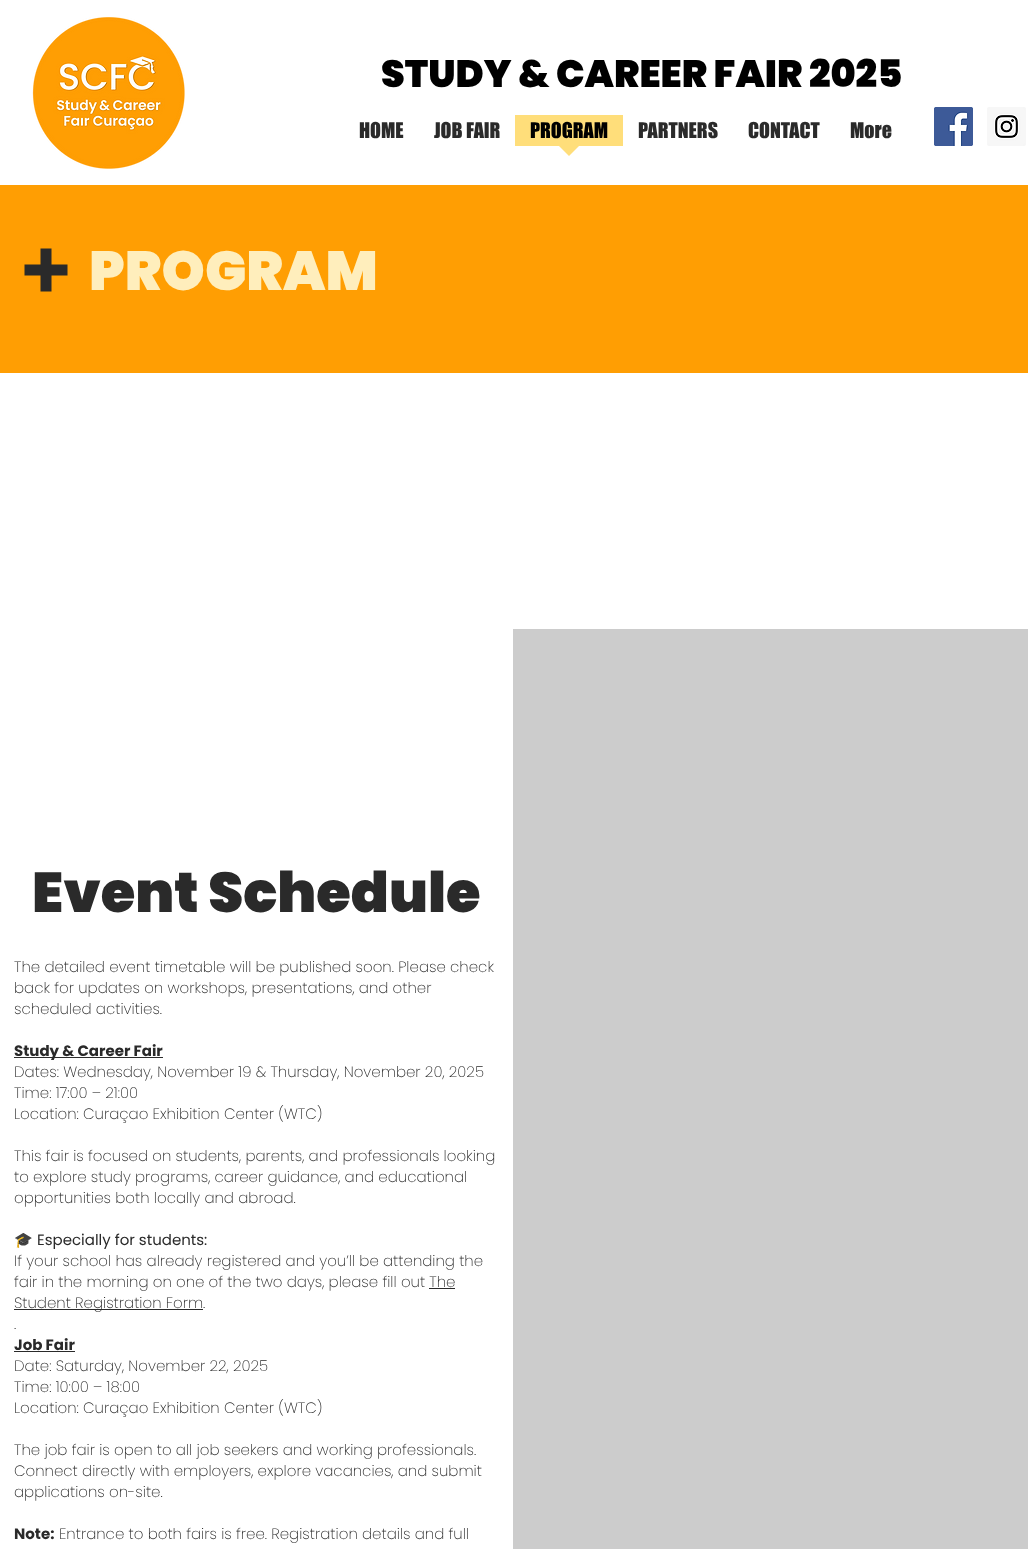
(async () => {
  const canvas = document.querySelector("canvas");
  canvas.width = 1028;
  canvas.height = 1549;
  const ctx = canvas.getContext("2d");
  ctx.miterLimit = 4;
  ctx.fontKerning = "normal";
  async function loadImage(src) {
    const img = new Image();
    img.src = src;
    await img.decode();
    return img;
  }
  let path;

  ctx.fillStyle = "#ffffff";
  ctx.fillRect(0, 0, 1028, 1549);
  ctx.drawImage(await loadImage("img/1.png"), 32, 17, 153, 152);
  ctx.fillStyle = "#ffde7a";
  ctx.fillRect(515, 115, 108, 31);
  path = new Path2D("M559 146H579L569 156Z");
  ctx.fill(path);
  ctx.drawImage(await loadImage("img/2.png"), 934, 107, 39, 39);
  ctx.drawImage(await loadImage("img/3.png"), 987, 107, 39, 39);
  ctx.fillStyle = "#ff9e03";
  ctx.fillRect(0, 185, 1028, 188);
  path = new Path2D("M63 269H47V253H45V269H29V271H45V287H47V271H63Z");
  ctx.strokeStyle = "#2a2a2a";
  ctx.lineWidth = 9;
  ctx.stroke(path);
  for (const [x, y, w, h, color] of [
    [14, 1057, 149, 1, "#2a2a2a"],
    [429, 1288, 26, 1, "#2a2a2a"],
    [14, 1309, 189, 1, "#2a2a2a"],
    [14, 1351, 61, 1, "#2a2a2a"],
    [513, 629, 515, 920, "#cccccc"],
  ]) {
    ctx.fillStyle = color;
    ctx.fillRect(x, y, w, h);
  }
  ctx.font = "900 38px Poppins";
  ctx.fillStyle = "#000000";
  ctx.fillText("STUDY & CAREER FAIR 2025", 381, 87);
  ctx.font = "20px 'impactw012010'";
  ctx.fillStyle = "#2a2a2a";
  ctx.fillText("HOME", 359, 138);
  ctx.fillText("JOB FAIR", 434, 138);
  ctx.fillStyle = "#000000";
  ctx.fillText("PROGRAM", 530, 138);
  ctx.fillStyle = "#2a2a2a";
  for (const [text, x, y] of [
    ["PARTNERS", 638, 138],
    ["CONTACT", 748, 138],
    ["More", 850, 138],
  ]) {
    ctx.fillText(text, x, y);
  }
  ctx.font = "900 55px Poppins";
  ctx.fillStyle = "#ffeebc";
  ctx.fillText("PROGRAM", 89, 290);
  ctx.font = "900 56px 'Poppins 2'";
  ctx.fillStyle = "#2a2a2a";
  ctx.fillText("Event Schedule", 32, 912);
  ctx.font = "200 15px Poppins";
  for (const [text, x, y] of [
    ["The detailed event timetable will be published soon. Please check", 14, 972],
    ["back for updates on workshops, presentations, and other", 14, 993],
    ["scheduled activities.", 14, 1014],
  ]) {
    ctx.fillText(text, x, y);
  }
  ctx.font = "bold 15px Poppins";
  ctx.fillText("Study & Career Fair", 14, 1056);
  ctx.font = "200 15px Poppins";
  for (const [text, x, y] of [
    ["Dates: Wednesday, November 19 & Thursday, November 20, 2025", 14, 1077],
    ["Time: 17:00 – 21:00", 14, 1098],
    ["Location: Curaçao Exhibition Center (WTC)", 14, 1119],
    ["This fair is focused on students, parents, and professionals looking", 14, 1161],
    ["to explore study programs, career guidance, and educational", 14, 1182],
    ["opportunities both locally and abroad.", 14, 1203],
  ]) {
    ctx.fillText(text, x, y);
  }
  ctx.font = "15px Noto Color Emoji";
  ctx.fillText("🎓", 14, 1245);
  ctx.font = "15px Poppins";
  ctx.fillText("Especially for students:", 37, 1245);
  ctx.font = "200 15px Poppins";
  for (const [text, x, y] of [
    ["If your school has already registered and you’ll be attending the", 14, 1266],
    ["fair in the morning on one of the two days, please fill out The", 14, 1287],
    ["Student Registration Form.", 14, 1308],
    [".", 14, 1329],
  ]) {
    ctx.fillText(text, x, y);
  }
  ctx.font = "bold 15px Poppins";
  ctx.fillText("Job Fair", 14, 1350);
  ctx.font = "200 15px Poppins";
  for (const [text, x, y] of [
    ["Date: Saturday, November 22, 2025", 14, 1371],
    ["Time: 10:00 – 18:00", 14, 1392],
    ["Location: Curaçao Exhibition Center (WTC)", 14, 1413],
    ["The job fair is open to all job seekers and working professionals.", 14, 1455],
    ["Connect directly with employers, explore vacancies, and submit", 14, 1476],
    ["applications on-site.", 14, 1497],
  ]) {
    ctx.fillText(text, x, y);
  }
  ctx.font = "bold 15px Poppins";
  ctx.fillText("Note:", 14, 1539);
  ctx.font = "200 15px Poppins";
  ctx.fillText("Entrance to both fairs is free. Registration details and full", 59, 1539);
})();
